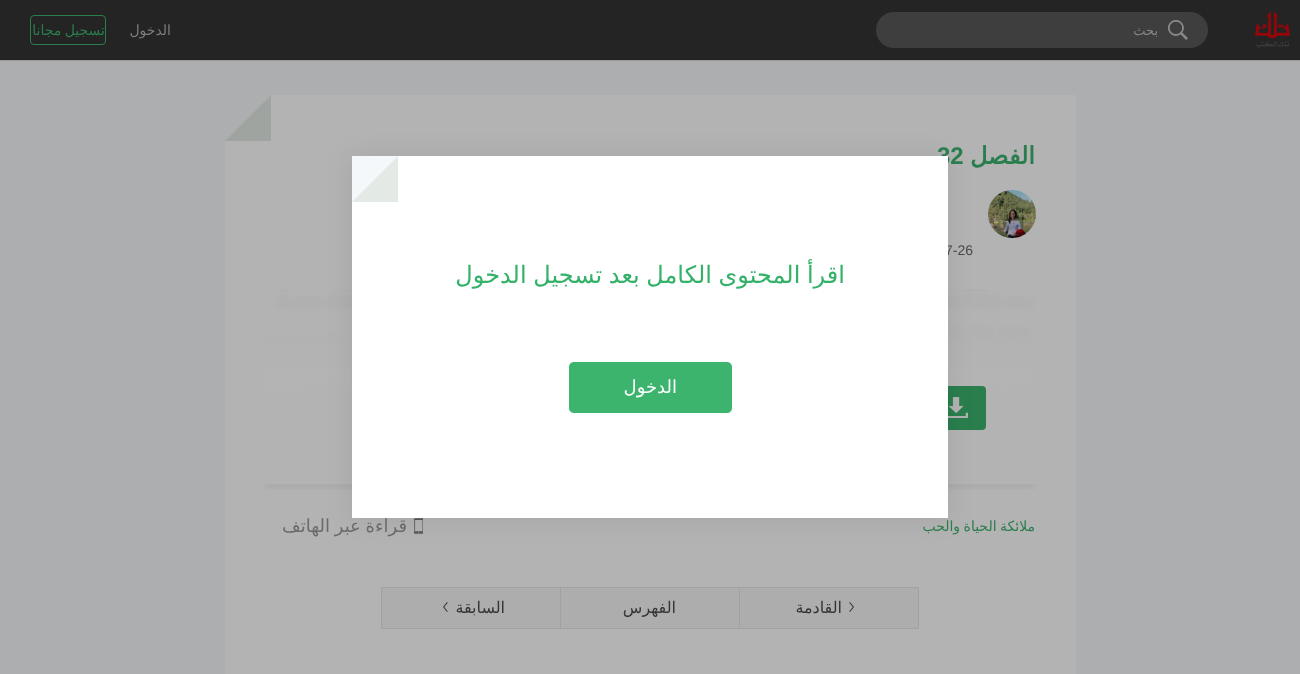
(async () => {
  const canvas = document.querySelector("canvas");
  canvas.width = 1300;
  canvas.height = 674;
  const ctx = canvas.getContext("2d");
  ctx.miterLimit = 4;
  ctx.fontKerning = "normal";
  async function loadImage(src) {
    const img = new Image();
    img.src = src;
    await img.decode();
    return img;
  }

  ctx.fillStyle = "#acaeaf";
  ctx.fillRect(0, 0, 1300, 674);
  ctx.fillStyle = "#242424";
  ctx.fillRect(0, 0, 1300, 60);
  ctx.fillStyle = "#999999";
  ctx.fillRect(0, 60, 1300, 1);
  ctx.drawImage(await loadImage("img/1.png"), 1255, 12, 35, 36);
  ctx.fillStyle = "#3e3e3e";
  ctx.beginPath();
  ctx.roundRect(876, 12, 332, 36, 18);
  ctx.fill();
  ctx.drawImage(await loadImage("img/2.png"), 1168, 20, 20, 20);
  ctx.beginPath();
  ctx.roundRect(30.5, 15.5, 75, 29, 3.5);
  ctx.strokeStyle = "#2a7e4d";
  ctx.stroke();
  ctx.fillStyle = "#b3b3b3";
  ctx.fillRect(225, 95, 851, 579);
  ctx.fillStyle = "#acaeaf";
  ctx.fillRect(225, 95, 46, 46);
  ctx.drawImage(await loadImage("img/3.png"), 225, 95, 46, 46);
  ctx.drawImage(await loadImage("img/4.png"), 988, 190, 48, 48);
  ctx.drawImage(await loadImage("img/5.png"), 264, 289, 772, 201);
  ctx.fillStyle = "#2a7e4d";
  ctx.beginPath();
  ctx.roundRect(812, 386, 174, 44, 4);
  ctx.fill();
  ctx.drawImage(await loadImage("img/6.png"), 948, 397, 20, 21);
  ctx.drawImage(await loadImage("img/8.png"), 414, 518, 9, 16);
  ctx.fillStyle = "rgba(0, 0, 0, 0.08)";
  ctx.filter = "blur(13px)";
  ctx.beginPath();
  ctx.rect(352, 157, 596, 362);
  ctx.fill();
  ctx.filter = "none";
  ctx.fillStyle = "#adadad";
  ctx.beginPath();
  ctx.rect(739.5, 587.5, 179, 41);
  ctx.fill();
  ctx.strokeStyle = "#a1a1a1";
  ctx.stroke();
  ctx.drawImage(await loadImage("img/9.png"), 849, 602, 5, 10);
  for (const [x, y, w, h, color] of [
    [561, 588, 178, 40, "#adadad"],
    [381, 587, 358, 1, "#a1a1a1"],
    [381, 628, 358, 1, "#a1a1a1"],
    [560, 587, 1, 42, "#a1a1a1"],
    [382, 588, 178, 40, "#adadad"],
    [381, 587, 1, 42, "#a1a1a1"],
  ]) {
    ctx.fillStyle = color;
    ctx.fillRect(x, y, w, h);
  }
  ctx.drawImage(await loadImage("img/10.png"), 443, 602, 5, 10);
  ctx.direction = "rtl";
  ctx.font = "13px DejaVu Sans";
  ctx.fillStyle = "#868686";
  ctx.fillText("بحث", 1158, 35);
  ctx.font = "14px DejaVu Sans";
  ctx.fillStyle = "#7d7d7d";
  ctx.fillText("الدخول", 171, 35);
  ctx.wordSpacing = "-1px";
  ctx.fillStyle = "#2a7e4d";
  ctx.fillText("تسجيل مجانا", 105, 35);
  ctx.wordSpacing = "0px";
  ctx.font = "bold 24px DejaVu Sans";
  ctx.fillText("الفصل", 1035, 164);
  ctx.direction = "ltr";
  ctx.font = "bold 24px Liberation Sans";
  ctx.fillText("32", 937, 164);
  ctx.font = "14px Liberation Sans";
  ctx.fillStyle = "#474747";
  ctx.fillText("7-26", 945, 255);
  ctx.fillStyle = "#ffffff";
  ctx.fillRect(352, 156, 596, 362);
  ctx.fillStyle = "#f5f8fa";
  ctx.fillRect(352, 156, 46, 46);
  ctx.drawImage(await loadImage("img/7.png"), 352, 156, 46, 46);
  ctx.wordSpacing = "-1px";
  ctx.direction = "rtl";
  ctx.font = "24px DejaVu Sans";
  ctx.fillStyle = "#34b169";
  ctx.fillText("اقرأ المحتوى الكامل بعد تسجيل الدخول", 845, 283);
  ctx.fillStyle = "#3cb46e";
  ctx.beginPath();
  ctx.roundRect(568.5, 361.5, 164, 52, 5.5);
  ctx.fill();
  ctx.strokeStyle = "#ffffff";
  ctx.stroke();
  ctx.wordSpacing = "0px";
  ctx.font = "18px DejaVu Sans";
  ctx.fillStyle = "#ffffff";
  ctx.fillText("الدخول", 677, 393);
  ctx.wordSpacing = "-1px";
  ctx.font = "14px DejaVu Sans";
  ctx.fillStyle = "#2a7e4d";
  ctx.fillText("ملائكة الحياة والحب", 1035, 531);
  ctx.font = "18px DejaVu Sans";
  ctx.fillStyle = "#6b6b6b";
  ctx.fillText("قراءة عبر الهاتف", 407, 532);
  ctx.wordSpacing = "0px";
  ctx.font = "16px DejaVu Sans";
  ctx.fillStyle = "#353535";
  for (const [text, x, y] of [
    ["القادمة", 842, 613],
    ["الفهرس", 676, 613],
    ["السابقة", 505, 613],
  ]) {
    ctx.fillText(text, x, y);
  }
})();
